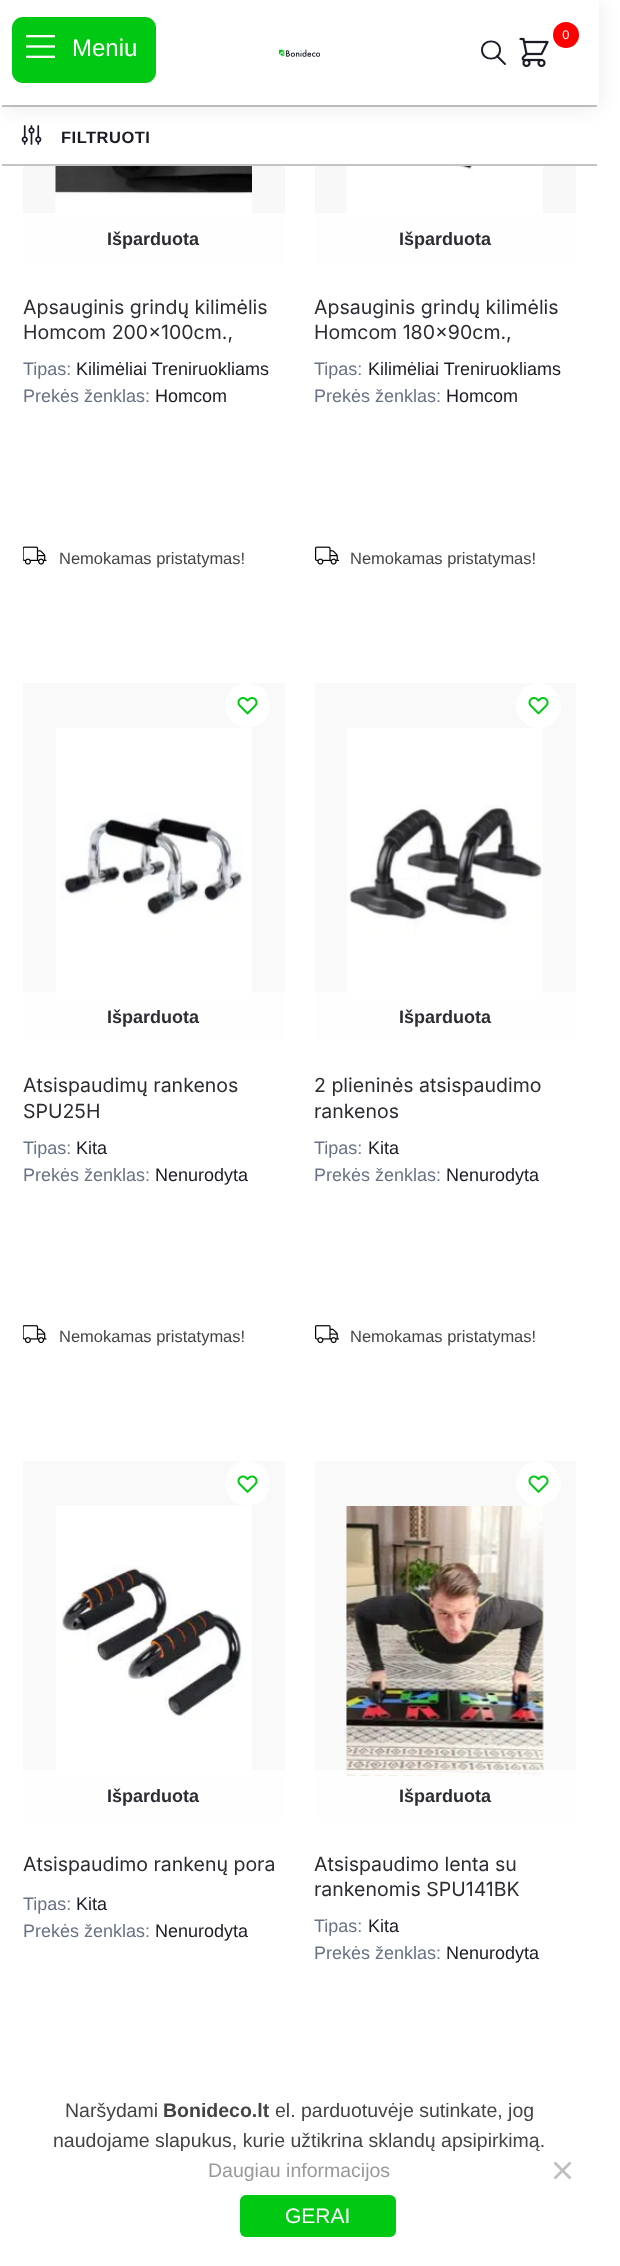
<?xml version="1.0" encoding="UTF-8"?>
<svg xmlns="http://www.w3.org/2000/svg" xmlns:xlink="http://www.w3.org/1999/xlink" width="620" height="2266">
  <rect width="100%" height="100%" fill="#ffffff" />
  <rect x="2" y="105" width="595" height="2" fill="#c3c4c7" />
  <image x="21" y="125" width="21" height="20" xlink:href="image4.png" />
  <rect y="2" width="599" height="105" fill="#000000" fill-opacity="0.08" filter="blur(11px)" />
  <rect width="599" height="105" fill="#fefffe" />
  <circle cx="566" cy="35" r="14" fill="#ff0000" stroke="#ffffff" stroke-width="2" />
  <image x="519" y="37" width="30" height="31" xlink:href="image1.png" />
  <rect x="12" y="17" width="144" height="66" rx="11" fill="#00c813" />
  <image x="26" y="35" width="29" height="23" xlink:href="image2.png" />
  <image x="279" y="49" width="41" height="8" xlink:href="image3.png" />
  <path d="M 505 64 l -8 -8 m 3 -6 c 0 11.5 -18 11.5 -18 0 c 0 -11.5 18 -11.5 18 0 z" fill="none" stroke="#1a1b25" stroke-width="1.9" stroke-linecap="round" stroke-linejoin="round" />
  <rect x="2" y="164" width="595" height="2" fill="#c3c4c7" />
  <rect x="23" y="166" width="262" height="98" fill="#f8f8f8" />
  <image x="55" y="166" width="197" height="53" xlink:href="image5.png" />
  <rect x="23" y="213" width="262" height="51" fill="#ffffff" fill-opacity="0.85" />
  <image x="23" y="546" width="24" height="19" xlink:href="image6.png" />
  <rect x="315" y="166" width="261" height="98" fill="#f8f8f8" />
  <image x="346" y="166" width="197" height="53" xlink:href="image7.png" />
  <rect x="315" y="213" width="261" height="51" fill="#ffffff" fill-opacity="0.85" />
  <image x="315" y="546" width="24" height="19" xlink:href="image8.png" />
  <rect x="23" y="683" width="262" height="360" fill="#f9f9f9" />
  <circle cx="247.5" cy="705.5" r="22.5" fill="#ffffff" />
  <image x="237" y="697" width="21" height="18" xlink:href="image9.png" />
  <image x="56" y="728" width="196" height="269" xlink:href="image10.png" />
  <rect x="23" y="992" width="262" height="51" fill="#ffffff" fill-opacity="0.85" />
  <image x="23" y="1325" width="24" height="19" xlink:href="image11.png" />
  <rect x="315" y="683" width="261" height="360" fill="#f9f9f9" />
  <circle cx="538.5" cy="705.5" r="22.5" fill="#ffffff" />
  <image x="528" y="697" width="21" height="18" xlink:href="image9.png" />
  <image x="347" y="728" width="196" height="269" xlink:href="image12.png" />
  <rect x="315" y="992" width="261" height="51" fill="#ffffff" fill-opacity="0.85" />
  <image x="315" y="1325" width="24" height="19" xlink:href="image13.png" />
  <rect x="23" y="1461" width="262" height="360" fill="#f9f9f9" />
  <circle cx="247.5" cy="1483.5" r="22.5" fill="#ffffff" />
  <image x="237" y="1475" width="21" height="18" xlink:href="image14.png" />
  <image x="56" y="1506" width="196" height="270" xlink:href="image15.png" />
  <rect x="23" y="1770" width="262" height="51" fill="#ffffff" fill-opacity="0.85" />
  <rect x="315" y="1461" width="261" height="360" fill="#f9f9f9" />
  <circle cx="538.5" cy="1483.5" r="22.5" fill="#ffffff" />
  <image x="528" y="1475" width="21" height="18" xlink:href="image14.png" />
  <image x="346" y="1506" width="198" height="270" xlink:href="image16.png" />
  <rect x="315" y="1770" width="261" height="51" fill="#ffffff" fill-opacity="0.85" />
  <path d="M 569.5 2161.5 l 2 2 l -16 16 l -2 -2 z" fill="#c0c0c0" />
  <path d="M 553.5 2163.5 l 2 -2 l 16 16 l -2 2 z" fill="#c0c0c0" />
  <rect x="240" y="2195" width="156" height="42" rx="6" fill="#00c813" />
  <text x="562" y="39" style="font-family: Inter; font-size: 12px; fill: #ffffff">0</text>
  <text x="72" y="56" style="font-family: Liberation Sans; font-size: 24px; fill: #ffffff">Meniu</text>
  <text x="61" y="143" style="font-family: Liberation Sans; font-size: 16.5px; font-weight: bold; letter-spacing: 0.5px; fill: #1a1b25">FILTRUOTI</text>
  <text x="107" y="245" style="font-family: Liberation Sans; font-size: 18px; font-weight: bold; fill: #2c2d33">Išparduota</text>
  <text x="23" y="314" style="font-family: Inter; font-size: 19.5px; fill: #2c2d33">Apsauginis grindų kilimėlis</text>
  <text x="23" y="339" style="font-family: Inter; font-size: 19.5px; fill: #2c2d33">Homcom 200x100cm.,</text>
  <text x="23" y="375" style="font-family: Liberation Sans; font-size: 18px; fill: #687385">Tipas:</text>
  <text x="76" y="375" style="font-family: Liberation Sans; font-size: 18px; fill: #1a1b25">Kilimėliai Treniruokliams</text>
  <text x="23" y="402" style="font-family: Liberation Sans; font-size: 18px; fill: #687385">Prekės ženklas:</text>
  <text x="155" y="402" style="font-family: Liberation Sans; font-size: 18px; fill: #1a1b25">Homcom</text>
  <text x="59" y="564" style="font-family: Liberation Sans; font-size: 16.5px; fill: #444444">Nemokamas pristatymas!</text>
  <text x="399" y="245" style="font-family: Liberation Sans; font-size: 18px; font-weight: bold; fill: #2c2d33">Išparduota</text>
  <text x="314" y="314" style="font-family: Inter; font-size: 19.5px; fill: #2c2d33">Apsauginis grindų kilimėlis</text>
  <text x="314" y="339" style="font-family: Inter; font-size: 19.5px; fill: #2c2d33">Homcom 180x90cm.,</text>
  <text x="314" y="375" style="font-family: Liberation Sans; font-size: 18px; fill: #687385">Tipas:</text>
  <text x="368" y="375" style="font-family: Liberation Sans; font-size: 18px; fill: #1a1b25">Kilimėliai Treniruokliams</text>
  <text x="314" y="402" style="font-family: Liberation Sans; font-size: 18px; fill: #687385">Prekės ženklas:</text>
  <text x="446" y="402" style="font-family: Liberation Sans; font-size: 18px; fill: #1a1b25">Homcom</text>
  <text x="350" y="564" style="font-family: Liberation Sans; font-size: 16.5px; fill: #444444">Nemokamas pristatymas!</text>
  <text x="107" y="1023" style="font-family: Liberation Sans; font-size: 18px; font-weight: bold; fill: #2c2d33">Išparduota</text>
  <text x="23" y="1092" style="font-family: Inter; font-size: 19.5px; fill: #2c2d33">Atsispaudimų rankenos</text>
  <text x="23" y="1118" style="font-family: Inter; font-size: 19.5px; fill: #2c2d33">SPU25H</text>
  <text x="23" y="1154" style="font-family: Liberation Sans; font-size: 18px; fill: #687385">Tipas:</text>
  <text x="76" y="1154" style="font-family: Liberation Sans; font-size: 18px; fill: #1a1b25">Kita</text>
  <text x="23" y="1181" style="font-family: Liberation Sans; font-size: 18px; fill: #687385">Prekės ženklas:</text>
  <text x="155" y="1181" style="font-family: Liberation Sans; font-size: 18px; fill: #1a1b25">Nenurodyta</text>
  <text x="59" y="1342" style="font-family: Liberation Sans; font-size: 16.5px; fill: #444444">Nemokamas pristatymas!</text>
  <text x="399" y="1023" style="font-family: Liberation Sans; font-size: 18px; font-weight: bold; fill: #2c2d33">Išparduota</text>
  <text x="314" y="1092" style="font-family: Inter; font-size: 19.5px; fill: #2c2d33">2 plieninės atsispaudimo</text>
  <text x="314" y="1118" style="font-family: Inter; font-size: 19.5px; fill: #2c2d33">rankenos</text>
  <text x="314" y="1154" style="font-family: Liberation Sans; font-size: 18px; fill: #687385">Tipas:</text>
  <text x="368" y="1154" style="font-family: Liberation Sans; font-size: 18px; fill: #1a1b25">Kita</text>
  <text x="314" y="1181" style="font-family: Liberation Sans; font-size: 18px; fill: #687385">Prekės ženklas:</text>
  <text x="446" y="1181" style="font-family: Liberation Sans; font-size: 18px; fill: #1a1b25">Nenurodyta</text>
  <text x="350" y="1342" style="font-family: Liberation Sans; font-size: 16.5px; fill: #444444">Nemokamas pristatymas!</text>
  <text x="107" y="1802" style="font-family: Liberation Sans; font-size: 18px; font-weight: bold; fill: #2c2d33">Išparduota</text>
  <text x="23" y="1871" style="font-family: Inter; font-size: 19.5px; fill: #2c2d33">Atsispaudimo rankenų pora</text>
  <text x="23" y="1910" style="font-family: Liberation Sans; font-size: 18px; fill: #687385">Tipas:</text>
  <text x="76" y="1910" style="font-family: Liberation Sans; font-size: 18px; fill: #1a1b25">Kita</text>
  <text x="23" y="1937" style="font-family: Liberation Sans; font-size: 18px; fill: #687385">Prekės ženklas:</text>
  <text x="155" y="1937" style="font-family: Liberation Sans; font-size: 18px; fill: #1a1b25">Nenurodyta</text>
  <text x="399" y="1802" style="font-family: Liberation Sans; font-size: 18px; font-weight: bold; fill: #2c2d33">Išparduota</text>
  <text x="314" y="1871" style="font-family: Inter; font-size: 19.5px; fill: #2c2d33">Atsispaudimo lenta su</text>
  <text x="314" y="1896" style="font-family: Inter; font-size: 19.5px; fill: #2c2d33">rankenomis SPU141BK</text>
  <text x="314" y="1932" style="font-family: Liberation Sans; font-size: 18px; fill: #687385">Tipas:</text>
  <text x="368" y="1932" style="font-family: Liberation Sans; font-size: 18px; fill: #1a1b25">Kita</text>
  <text x="314" y="1959" style="font-family: Liberation Sans; font-size: 18px; fill: #687385">Prekės ženklas:</text>
  <text x="446" y="1959" style="font-family: Liberation Sans; font-size: 18px; fill: #1a1b25">Nenurodyta</text>
  <text x="65" y="2117" style="font-family: Liberation Sans; font-size: 19.5px; fill: #444444">Naršydami</text>
  <text x="163" y="2117" style="font-family: Liberation Sans; font-size: 19.5px; font-weight: bold; fill: #444444">Bonideco.lt</text>
  <text x="275" y="2117" style="font-family: Liberation Sans; font-size: 19.5px; fill: #444444">el. parduotuvėje sutinkate, jog</text>
  <text x="53" y="2147" style="font-family: Liberation Sans; font-size: 19.5px; fill: #444444">naudojame slapukus, kurie užtikrina sklandų apsipirkimą.</text>
  <text x="208" y="2177" style="font-family: Liberation Sans; font-size: 19.5px; fill: #999999">Daugiau informacijos</text>
  <text x="285" y="2223" style="font-family: Liberation Sans; font-size: 21px; fill: #ffffff">GERAI</text>
</svg>
